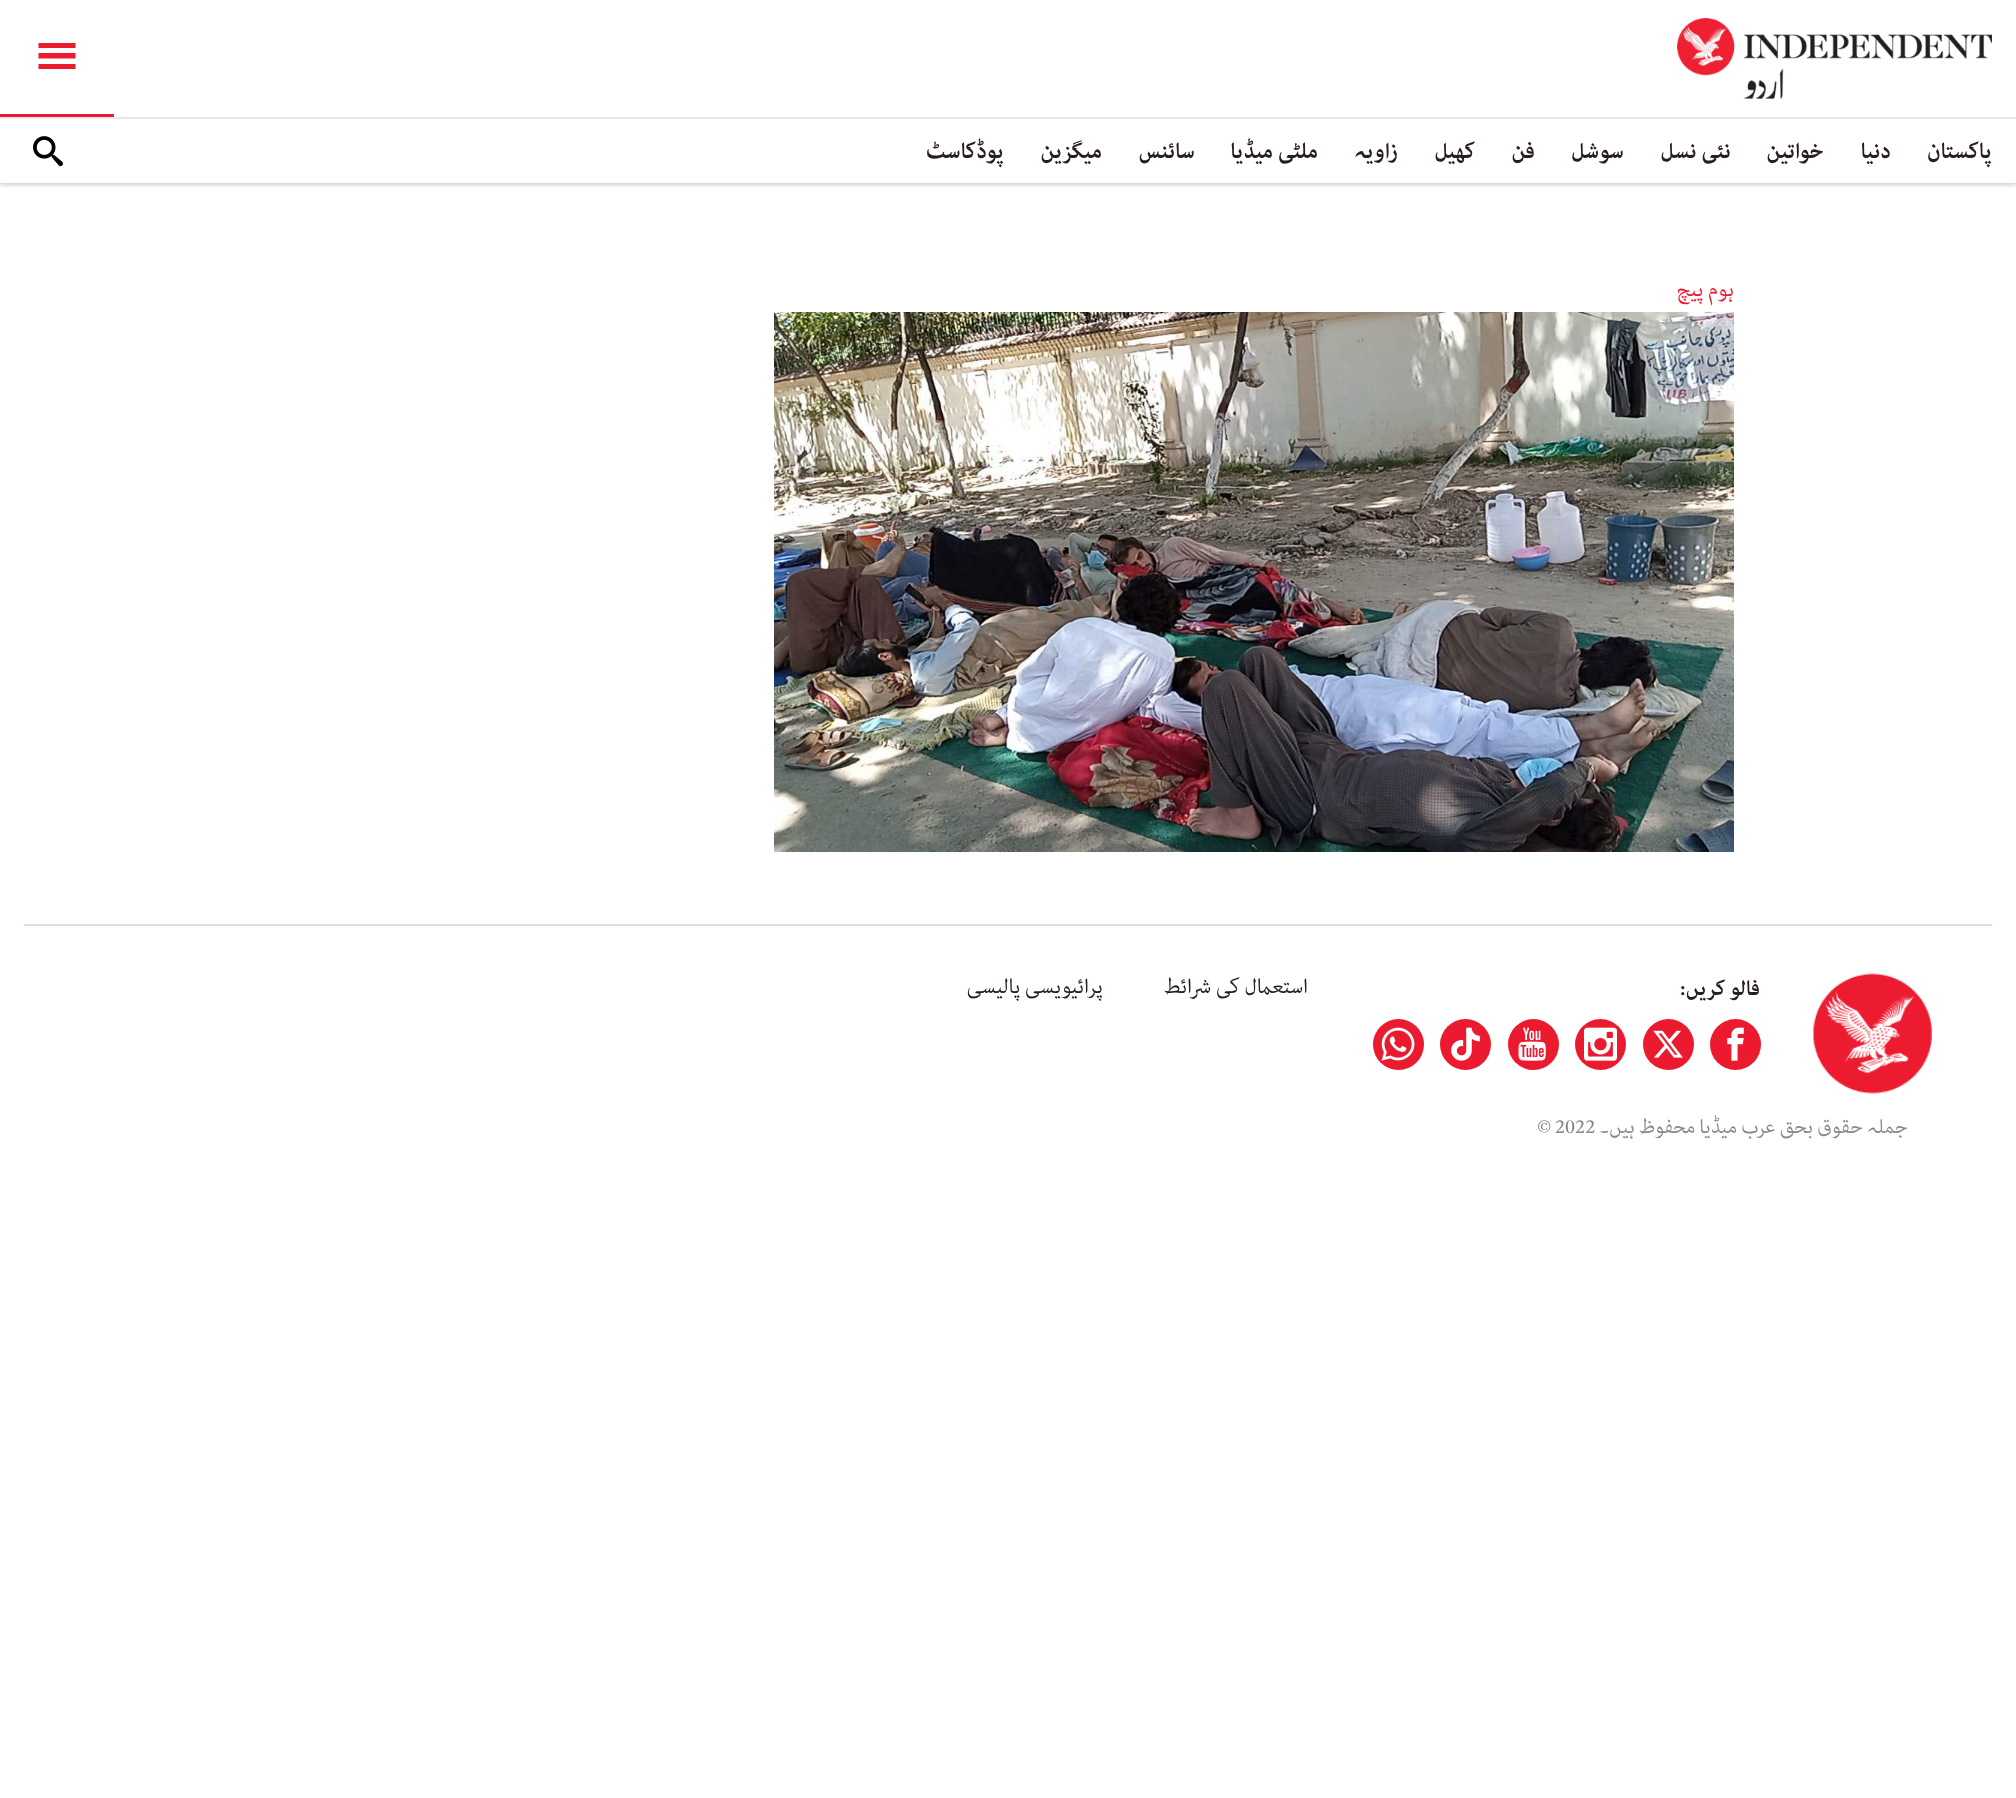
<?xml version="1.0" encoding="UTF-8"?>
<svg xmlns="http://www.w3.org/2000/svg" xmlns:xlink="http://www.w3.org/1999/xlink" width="2016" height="1798">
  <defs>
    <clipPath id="clip1"><rect x="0" y="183" width="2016" height="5" /></clipPath>
  </defs>
  <rect width="100%" height="100%" fill="#ffffff" />
  <g clip-path="url(#clip1)">
    <rect y="2" width="2016" height="183" fill="#000000" fill-opacity="0.2" filter="blur(2px)" />
  </g>
  <rect y="117" width="2016" height="2" fill="#e5e9ea" />
  <image x="1677" y="18" width="315" height="81" xlink:href="image1.png" />
  <path d="M 38.5 43 h 37 v 5 h -37 z m 0 10 h 37 v 5.5 h -37 z m 0 11 h 37 v 5 h -37 z" fill="#ec1a2e" />
  <rect y="114" width="114" height="3" fill="#ec1a2e" />
  <image x="33" y="136" width="30" height="31" xlink:href="image2.png" />
  <image x="774" y="312" width="960" height="540" xlink:href="image3.png" />
  <rect x="24" y="924" width="1968" height="2" fill="#dadfe1" />
  <image x="1813" y="973" width="119" height="121" xlink:href="image4.png" />
  <circle cx="1735.5" cy="1044.5" r="25.5" fill="#ec1a2e" />
  <image x="1727" y="1027" width="17" height="34" xlink:href="image5.png" />
  <circle cx="1668.5" cy="1044.5" r="25.5" fill="#ec1a2e" />
  <image x="1653" y="1030" width="30" height="28" xlink:href="image6.png" />
  <circle cx="1600.5" cy="1044.5" r="25.5" fill="#ec1a2e" />
  <image x="1584" y="1027" width="33" height="34" xlink:href="image7.png" />
  <circle cx="1533.5" cy="1044.5" r="25.5" fill="#ec1a2e" />
  <image x="1518" y="1027" width="28" height="34" xlink:href="image8.png" />
  <circle cx="1465.5" cy="1044.5" r="25.5" fill="#ec1a2e" />
  <image x="1451" y="1027" width="29" height="34" xlink:href="image9.png" />
  <circle cx="1398.5" cy="1044.5" r="25.5" fill="#ec1a2e" />
  <image x="1381" y="1027" width="34" height="34" xlink:href="image10.png" />
  <text x="1992" y="158" style="font-family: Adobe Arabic; font-size: 31.5px; font-weight: bold; direction: rtl; fill: #281e1e">پاکستان</text>
  <text x="1891" y="158" style="font-family: Adobe Arabic; font-size: 31.5px; font-weight: bold; direction: rtl; fill: #281e1e">دنیا</text>
  <text x="1824" y="158" style="font-family: Adobe Arabic; font-size: 31.5px; font-weight: bold; direction: rtl; fill: #281e1e">خواتین</text>
  <text x="1731" y="158" word-spacing="-1.5" style="font-family: Adobe Arabic; font-size: 31.5px; font-weight: bold; direction: rtl; fill: #281e1e">نئی نسل</text>
  <text x="1624" y="158" style="font-family: Adobe Arabic; font-size: 31.5px; font-weight: bold; direction: rtl; fill: #281e1e">سوشل</text>
  <text x="1535" y="158" style="font-family: Adobe Arabic; font-size: 31.5px; font-weight: bold; direction: rtl; fill: #281e1e">فن</text>
  <text x="1475" y="158" style="font-family: Adobe Arabic; font-size: 31.5px; font-weight: bold; direction: rtl; fill: #281e1e">کھیل</text>
  <text x="1398" y="158" style="font-family: Adobe Arabic; font-size: 31.5px; font-weight: bold; direction: rtl; fill: #281e1e">زاویہ</text>
  <text x="1318" y="158" word-spacing="-1.5" style="font-family: Adobe Arabic; font-size: 31.5px; font-weight: bold; direction: rtl; fill: #281e1e">ملٹی میڈیا</text>
  <text x="1195" y="158" style="font-family: Adobe Arabic; font-size: 31.5px; font-weight: bold; direction: rtl; fill: #281e1e">سائنس</text>
  <text x="1102" y="158" style="font-family: Adobe Arabic; font-size: 31.5px; font-weight: bold; direction: rtl; fill: #281e1e">میگزین</text>
  <text x="1004" y="158" style="font-family: Adobe Arabic; font-size: 31.5px; font-weight: bold; direction: rtl; fill: #281e1e">پوڈکاسٹ</text>
  <text x="1734" y="296" word-spacing="-1.5" style="font-family: Adobe Arabic; font-size: 30px; direction: rtl; fill: #ec1a2e">ہوم پیچ</text>
  <text x="1760" y="995" word-spacing="-1.5" style="font-family: Adobe Arabic; font-size: 30px; font-weight: bold; direction: rtl; fill: #281e1e">فالو کریں:</text>
  <text x="1308" y="993" word-spacing="-1.5" style="font-family: Adobe Arabic; font-size: 30px; direction: rtl; fill: #281e1e">استعمال کی شرائط</text>
  <text x="1103" y="993" word-spacing="-1.5" style="font-family: Adobe Arabic; font-size: 30px; direction: rtl; fill: #281e1e">پرائیویسی پالیسی</text>
  <text x="1908" y="1133" word-spacing="-1.5" style="font-family: Adobe Arabic; font-size: 28.5px; direction: rtl; fill: #888888">جملہ حقوق بحق عرب میڈیا محفوظ ہیں۔</text>
  <text x="1555" y="1133" style="font-family: Adobe Arabic; font-size: 28.5px; fill: #888888">2022</text>
  <text x="1537" y="1133" style="font-family: Adobe Arabic; font-size: 28.5px; fill: #888888">©</text>
</svg>
